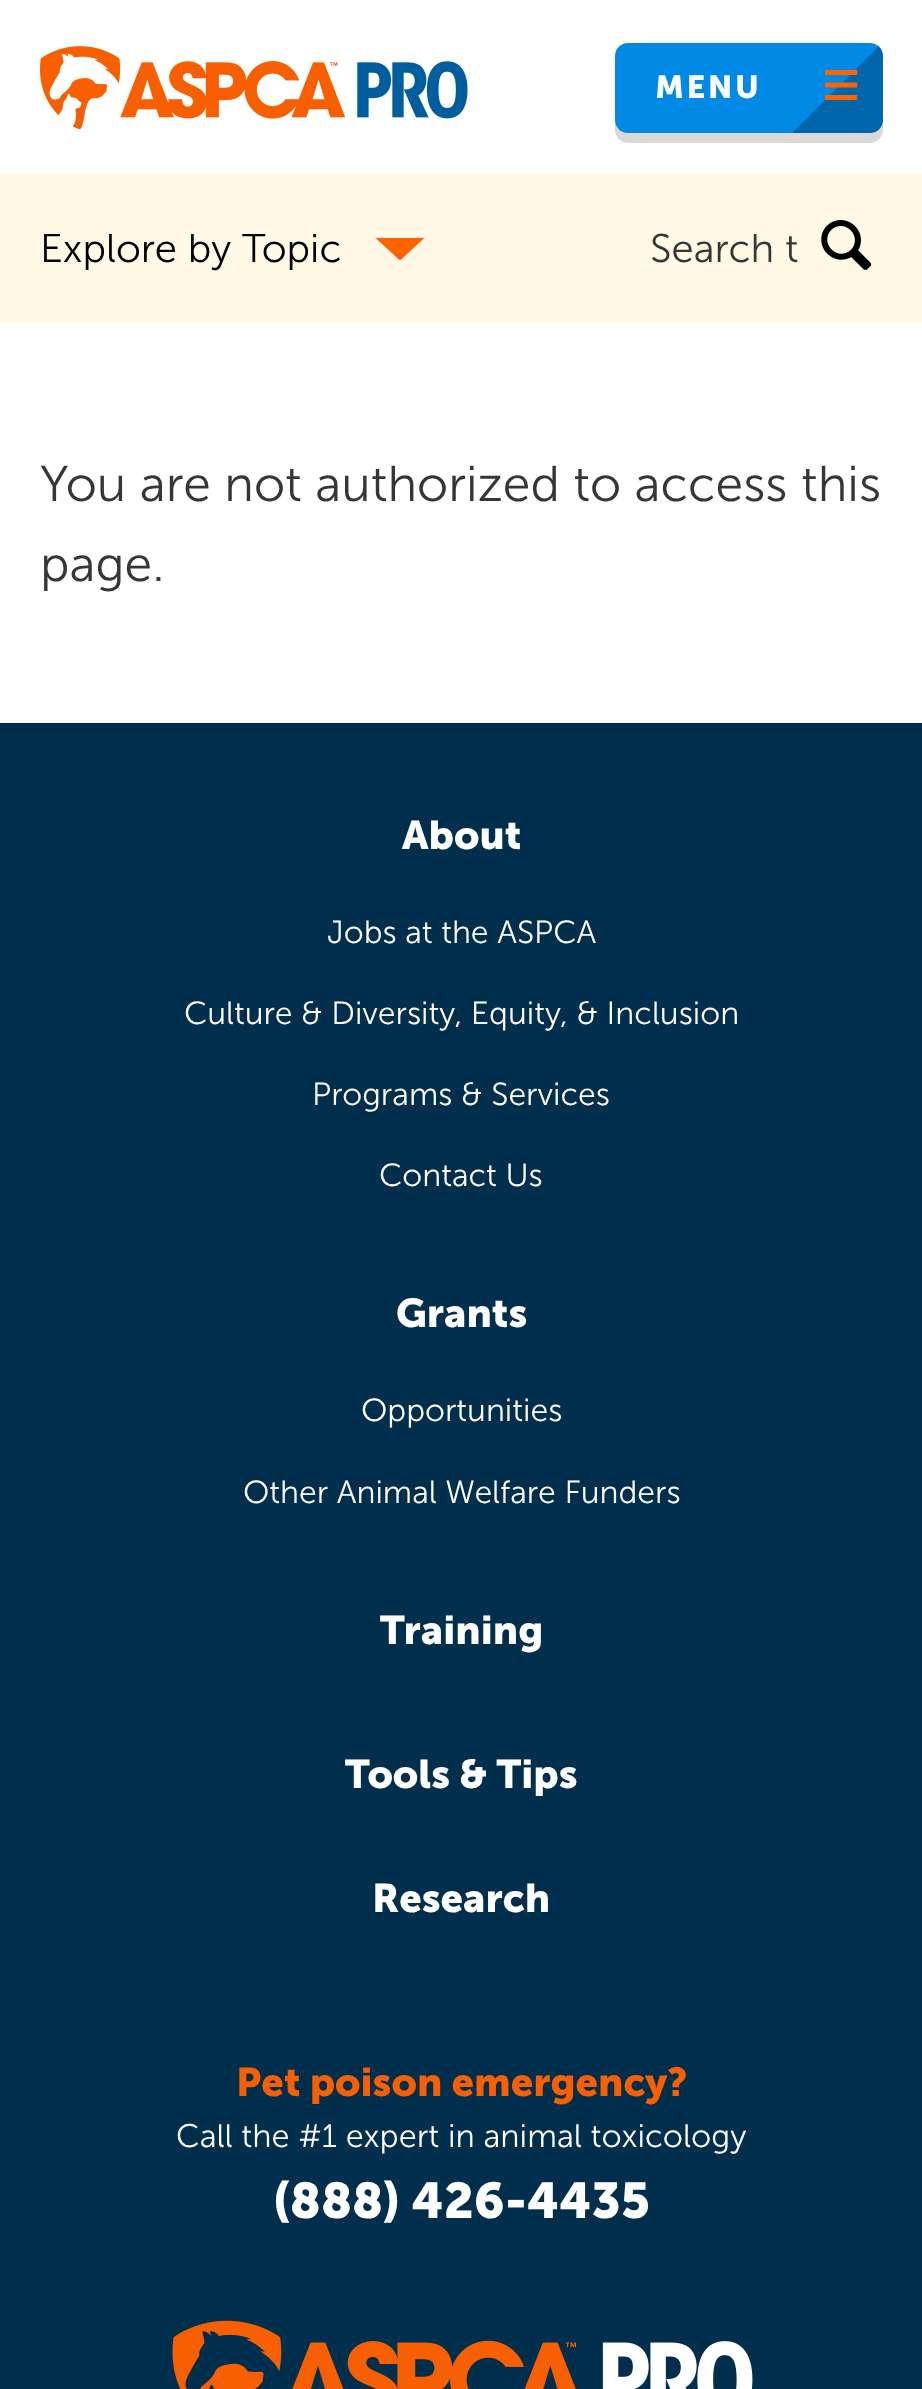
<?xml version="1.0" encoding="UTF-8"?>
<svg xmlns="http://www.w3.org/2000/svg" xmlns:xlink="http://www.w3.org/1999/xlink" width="922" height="2389">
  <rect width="100%" height="100%" fill="#002e4d" />
  <rect width="922" height="173" fill="#ffffff" />
  <image x="40" y="46" width="428" height="84" xlink:href="image1.png" />
  <path d="M 615 120 v 10 c 0 7 6 13 13 13 h 242 c 7 0 13 -6 13 -13 v -64 l -1 -4 v 58 c 0 7 -5 12 -12 12 h -242 c -7 0 -13 -5 -13 -12 z" fill="#d9d9d9" />
  <rect x="615" y="43" width="268" height="90" rx="13" fill="#0089e5" />
  <path d="M 792 133 h 78 c 7 0 13 -6 13 -13 v -64 c 0 -4 -2 -7 -4 -10 z" fill="#000000" fill-opacity="0.25" />
  <image x="825" y="70" width="33" height="30" xlink:href="image2.png" />
  <rect y="173" width="922" height="150" fill="#fff9e5" />
  <image x="375" y="238" width="50" height="23" xlink:href="image3.png" />
  <image x="821" y="220" width="51" height="50" xlink:href="image4.png" />
  <rect y="323" width="922" height="400" fill="#ffffff" />
  <image x="172" y="2320" width="581" height="69" xlink:href="image5.png" />
  <text x="655" y="98" style="font-family: 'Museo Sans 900'; font-size: 32px; font-weight: bold; letter-spacing: 2.5px; fill: #ffffff">MENU</text>
  <text x="40" y="262" style="font-family: 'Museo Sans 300'; font-size: 40px; font-weight: 300; fill: #000000">Explore by Topic</text>
  <text x="650" y="262" style="font-family: 'Museo Sans 300'; font-size: 40px; font-weight: 300; fill: #363636">Search t</text>
  <text x="40" y="501" style="font-family: 'Museo Sans 300'; font-size: 50px; font-weight: 300; fill: #363636">You are not authorized to access this</text>
  <text x="40" y="581" style="font-family: 'Museo Sans 300'; font-size: 50px; font-weight: 300; fill: #363636">page.</text>
  <text x="402" y="849" style="font-family: 'Museo Sans 900'; font-size: 40px; font-weight: bold; fill: #ffffff">About</text>
  <text x="327" y="943" style="font-family: 'Museo Sans 300'; font-size: 32px; font-weight: 300; fill: #ffffff">Jobs at the ASPCA</text>
  <text x="184" y="1024" style="font-family: 'Museo Sans 300'; font-size: 32px; font-weight: 300; fill: #ffffff">Culture &amp; Diversity, Equity, &amp; Inclusion</text>
  <text x="312" y="1105" style="font-family: 'Museo Sans 300'; font-size: 32px; font-weight: 300; fill: #ffffff">Programs &amp; Services</text>
  <text x="379" y="1186" style="font-family: 'Museo Sans 300'; font-size: 32px; font-weight: 300; fill: #ffffff">Contact Us</text>
  <text x="396" y="1327" style="font-family: 'Museo Sans 900'; font-size: 40px; font-weight: bold; fill: #ffffff">Grants</text>
  <text x="361" y="1421" style="font-family: 'Museo Sans 300'; font-size: 32px; font-weight: 300; fill: #ffffff">Opportunities</text>
  <text x="243" y="1503" style="font-family: 'Museo Sans 300'; font-size: 32px; font-weight: 300; fill: #ffffff">Other Animal Welfare Funders</text>
  <text x="380" y="1644" style="font-family: 'Museo Sans 900'; font-size: 40px; font-weight: bold; fill: #ffffff">Training</text>
  <text x="345" y="1788" style="font-family: 'Museo Sans 900'; font-size: 40px; font-weight: bold; fill: #ffffff">Tools &amp; Tips</text>
  <text x="372" y="1912" style="font-family: 'Museo Sans 900'; font-size: 40px; font-weight: bold; fill: #ffffff">Research</text>
  <text x="236" y="2096" style="font-family: 'Museo Sans 900'; font-size: 40px; font-weight: bold; fill: #f75f00">Pet poison emergency?</text>
  <text x="176" y="2147" style="font-family: 'Museo Sans 300'; font-size: 32.5px; font-weight: 300; fill: #ffffff">Call the #1 expert in animal toxicology</text>
  <text x="273" y="2218" style="font-family: 'Museo Sans 900'; font-size: 50px; font-weight: bold; fill: #ffffff">(888) 426-4435</text>
</svg>
